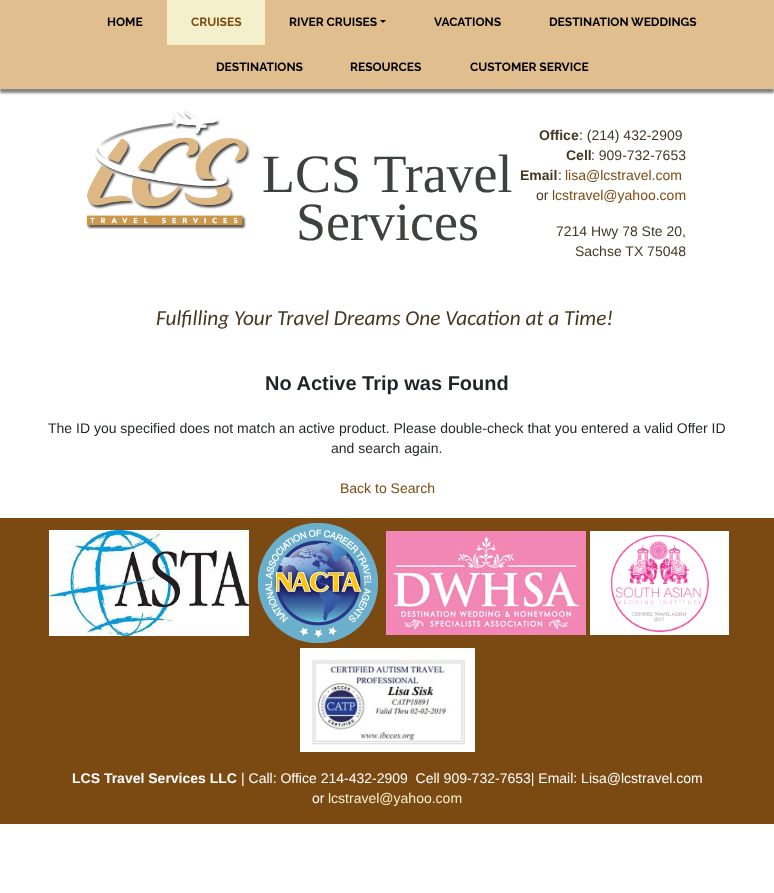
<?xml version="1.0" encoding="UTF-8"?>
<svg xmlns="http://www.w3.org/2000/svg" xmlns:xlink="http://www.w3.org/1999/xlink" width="774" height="893">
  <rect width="100%" height="100%" fill="#ffffff" />
  <rect y="4" width="774" height="89" fill="#000000" fill-opacity="0.48" filter="blur(1px)" />
  <rect width="774" height="89" fill="#e0be8e" />
  <rect x="167" width="98" height="45" fill="#f4f0cb" />
  <path d="M 380 20 h 6 l -3 3 z" fill="#000000" />
  <image x="86" y="110" width="164" height="119" xlink:href="image1.png" />
  <rect y="518" width="774" height="306" fill="#7b4a12" />
  <image x="49" y="530" width="200" height="106" xlink:href="image2.png" />
  <image x="258" y="523" width="120" height="120" xlink:href="image3.png" />
  <image x="386" y="531" width="200" height="104" xlink:href="image4.png" />
  <image x="590" y="531" width="139" height="104" xlink:href="image5.png" />
  <image x="300" y="648" width="175" height="104" xlink:href="image6.png" />
  <text x="107" y="26" style="font-family: Raleway; font-size: 12px; font-weight: bold; fill: #000000">HOME</text>
  <text x="191" y="26" style="font-family: Raleway; font-size: 12px; font-weight: bold; fill: #7b4a12">CRUISES</text>
  <text x="289" y="26" style="font-family: Raleway; font-size: 12px; font-weight: bold; fill: #000000">RIVER CRUISES</text>
  <text x="434" y="26" style="font-family: Raleway; font-size: 12px; font-weight: bold; fill: #000000">VACATIONS</text>
  <text x="549" y="26" style="font-family: Raleway; font-size: 12px; font-weight: bold; fill: #000000">DESTINATION WEDDINGS</text>
  <text x="216" y="71" style="font-family: Raleway; font-size: 12px; font-weight: bold; fill: #000000">DESTINATIONS</text>
  <text x="350" y="71" style="font-family: Raleway; font-size: 12px; font-weight: bold; fill: #000000">RESOURCES</text>
  <text x="470" y="71" style="font-family: Raleway; font-size: 12px; font-weight: bold; fill: #000000">CUSTOMER SERVICE</text>
  <text x="262" y="192" style="font-family: Liberation Serif; font-size: 54px; fill: #3d423e">LCS Travel</text>
  <text x="296" y="240" style="font-family: Liberation Serif; font-size: 54px; fill: #3d423e">Services</text>
  <text x="539" y="140" style="font-family: Liberation Sans; font-size: 14px; font-weight: bold; fill: #453823">Office</text>
  <text x="579" y="140" style="font-family: Liberation Sans; font-size: 14px; fill: #453823">: (214) 432-2909</text>
  <text x="566" y="160" style="font-family: Liberation Sans; font-size: 14px; font-weight: bold; fill: #453823">Cell</text>
  <text x="591" y="160" style="font-family: Liberation Sans; font-size: 14px; fill: #453823">: 909-732-7653</text>
  <text x="520" y="180" style="font-family: Liberation Sans; font-size: 14px; font-weight: bold; fill: #453823">Email</text>
  <text x="558" y="180" style="font-family: Liberation Sans; font-size: 14px; fill: #453823">:</text>
  <text x="565" y="180" style="font-family: Liberation Sans; font-size: 14px; fill: #7b4a12">lisa@lcstravel.com</text>
  <text x="536" y="200" style="font-family: Liberation Sans; font-size: 14px; fill: #453823">or</text>
  <text x="552" y="200" style="font-family: Liberation Sans; font-size: 14px; fill: #7b4a12">lcstravel@yahoo.com</text>
  <text x="556" y="236" style="font-family: Liberation Sans; font-size: 14px; fill: #453823">7214 Hwy 78 Ste 20,</text>
  <text x="575" y="256" style="font-family: Liberation Sans; font-size: 14px; fill: #453823">Sachse TX 75048</text>
  <text x="156" y="325" style="font-family: Carlito; font-size: 21.3px; font-style: italic; fill: #453823">Fulfilling Your Travel Dreams One Vacation at a Time!</text>
  <text x="265" y="390" style="font-family: Liberation Sans; font-size: 20px; font-weight: bold; fill: #1f2426">No Active Trip was Found</text>
  <text x="48" y="433" style="font-family: Liberation Sans; font-size: 14px; fill: #1f2426">The ID you specified does not match an active product. Please double-check that you entered a valid Offer ID</text>
  <text x="331" y="453" style="font-family: Liberation Sans; font-size: 14px; fill: #1f2426">and search again.</text>
  <text x="340" y="493" style="font-family: Liberation Sans; font-size: 14px; fill: #7b4a12">Back to Search</text>
  <text x="72" y="783" style="font-family: Liberation Sans; font-size: 14px; font-weight: bold; fill: #ffffff">LCS Travel Services LLC</text>
  <text x="241" y="783" style="font-family: Liberation Sans; font-size: 14px; fill: #ffffff" xml:space="preserve">| Call: Office 214-432-2909  Cell 909-732-7653| Email: Lisa@lcstravel.com</text>
  <text x="312" y="803" style="font-family: Liberation Sans; font-size: 14px; fill: #ffffff">or</text>
  <text x="328" y="803" style="font-family: Liberation Sans; font-size: 14px; fill: #f4f0cb">lcstravel@yahoo.com</text>
</svg>
